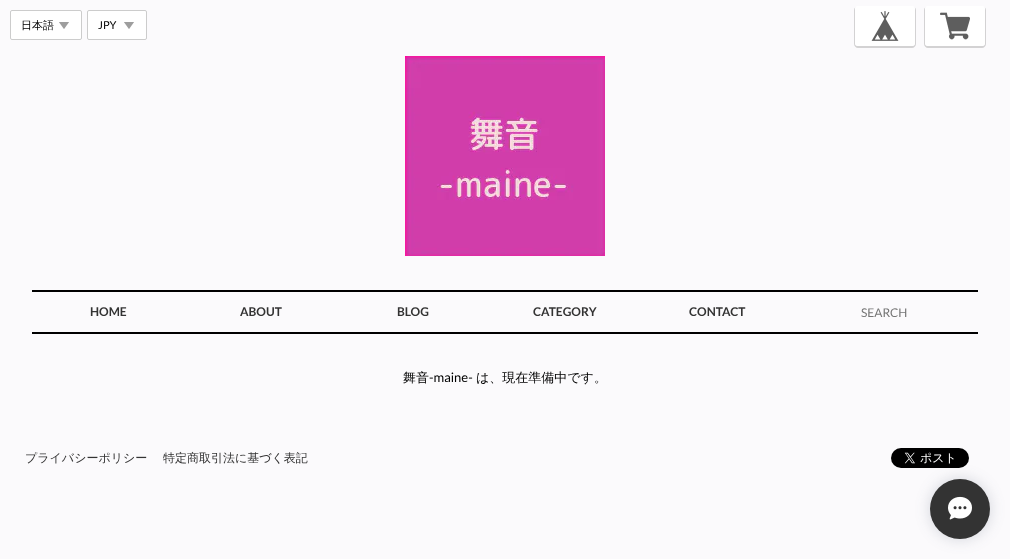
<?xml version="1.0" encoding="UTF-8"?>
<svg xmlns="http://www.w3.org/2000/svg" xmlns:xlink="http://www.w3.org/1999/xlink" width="1010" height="559">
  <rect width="100%" height="100%" fill="#fbfafc" />
  <rect x="10.5" y="10.5" width="71" height="29" rx="1.5" fill="#ffffff" stroke="#cccccc" />
  <image x="59" y="22" width="10" height="7" xlink:href="image1.png" />
  <rect x="87.5" y="10.5" width="59" height="29" rx="1.5" fill="#ffffff" stroke="#cccccc" />
  <image x="124" y="22" width="10" height="7" xlink:href="image1.png" />
  <path d="M 858 6 c -2 0 -4 2 -4 4 v 34 c 0 2 2 4 4 4 h 54 c 2 0 4 -2 4 -4 v -34 c 0 -2 -2 -4 -4 -4 c 2 0 3 1 3 3 v 34 c 0 2 -1 3 -3 3 h -54 c -2 0 -3 -1 -3 -3 v -34 c 0 -2 1 -3 3 -3 z" fill="#d3d2d3" />
  <rect x="855" y="6" width="60" height="40" rx="3" fill="#ffffff" />
  <image x="871" y="11" width="28" height="30" xlink:href="image2.png" />
  <path d="M 928 6 c -2 0 -4 2 -4 4 v 34 c 0 2 2 4 4 4 h 54 c 2 0 4 -2 4 -4 v -34 c 0 -2 -2 -4 -4 -4 c 2 0 3 1 3 3 v 34 c 0 2 -1 3 -3 3 h -54 c -2 0 -3 -1 -3 -3 v -34 c 0 -2 1 -3 3 -3 z" fill="#d3d2d3" />
  <rect x="925" y="6" width="60" height="40" rx="3" fill="#ffffff" />
  <image x="940" y="12" width="30" height="28" xlink:href="image3.png" />
  <image x="405" y="56" width="200" height="200" xlink:href="image4.png" />
  <rect x="32" y="290" width="946" height="2" fill="#000000" />
  <rect x="32" y="332" width="946" height="2" fill="#000000" />
  <image x="891" y="448" width="78" height="20" xlink:href="image5.png" />
  <rect x="930" y="479" width="60" height="60" rx="30" fill="#334258" fill-opacity="0.2" filter="blur(7.5px)" />
  <circle cx="960" cy="509" r="30" fill="#333333" />
  <image x="948" y="496" width="24" height="24" xlink:href="image6.png" />
  <text x="21" y="29" style="font-family: WenQuanYi Zen Hei; font-size: 11px; font-weight: 500; fill: #000000">日本語</text>
  <text x="98" y="29" style="font-family: Lato; font-size: 11px; fill: #000000">JPY</text>
  <text x="90" y="316" style="font-family: Lato; font-size: 12px; font-weight: bold; fill: #333333">HOME</text>
  <text x="240" y="316" style="font-family: Lato; font-size: 12px; font-weight: bold; fill: #333333">ABOUT</text>
  <text x="397" y="316" style="font-family: Lato; font-size: 12px; font-weight: bold; fill: #333333">BLOG</text>
  <text x="533" y="316" style="font-family: Lato; font-size: 12px; font-weight: bold; fill: #333333">CATEGORY</text>
  <text x="689" y="316" style="font-family: Lato; font-size: 12px; font-weight: bold; fill: #333333">CONTACT</text>
  <text x="861" y="317" style="font-family: Lato; font-size: 12px; fill: #757575">SEARCH</text>
  <text x="403" y="382" style="font-family: WenQuanYi Zen Hei; font-size: 13px; font-weight: 500; fill: #000000">舞音</text>
  <text x="429" y="382" style="font-family: Lato; font-size: 13px; fill: #000000">-maine-</text>
  <text x="476" y="382" style="font-family: WenQuanYi Zen Hei; font-size: 13px; font-weight: 500; fill: #000000">は、現在準備中です。</text>
  <text x="25" y="462" style="font-family: WenQuanYi Zen Hei; font-size: 12px; font-weight: 500; fill: #333333">プライバシーポリシー</text>
  <text x="163" y="462" style="font-family: WenQuanYi Zen Hei; font-size: 12px; font-weight: 500; fill: #333333">特定商取引法に基づく表記</text>
</svg>
